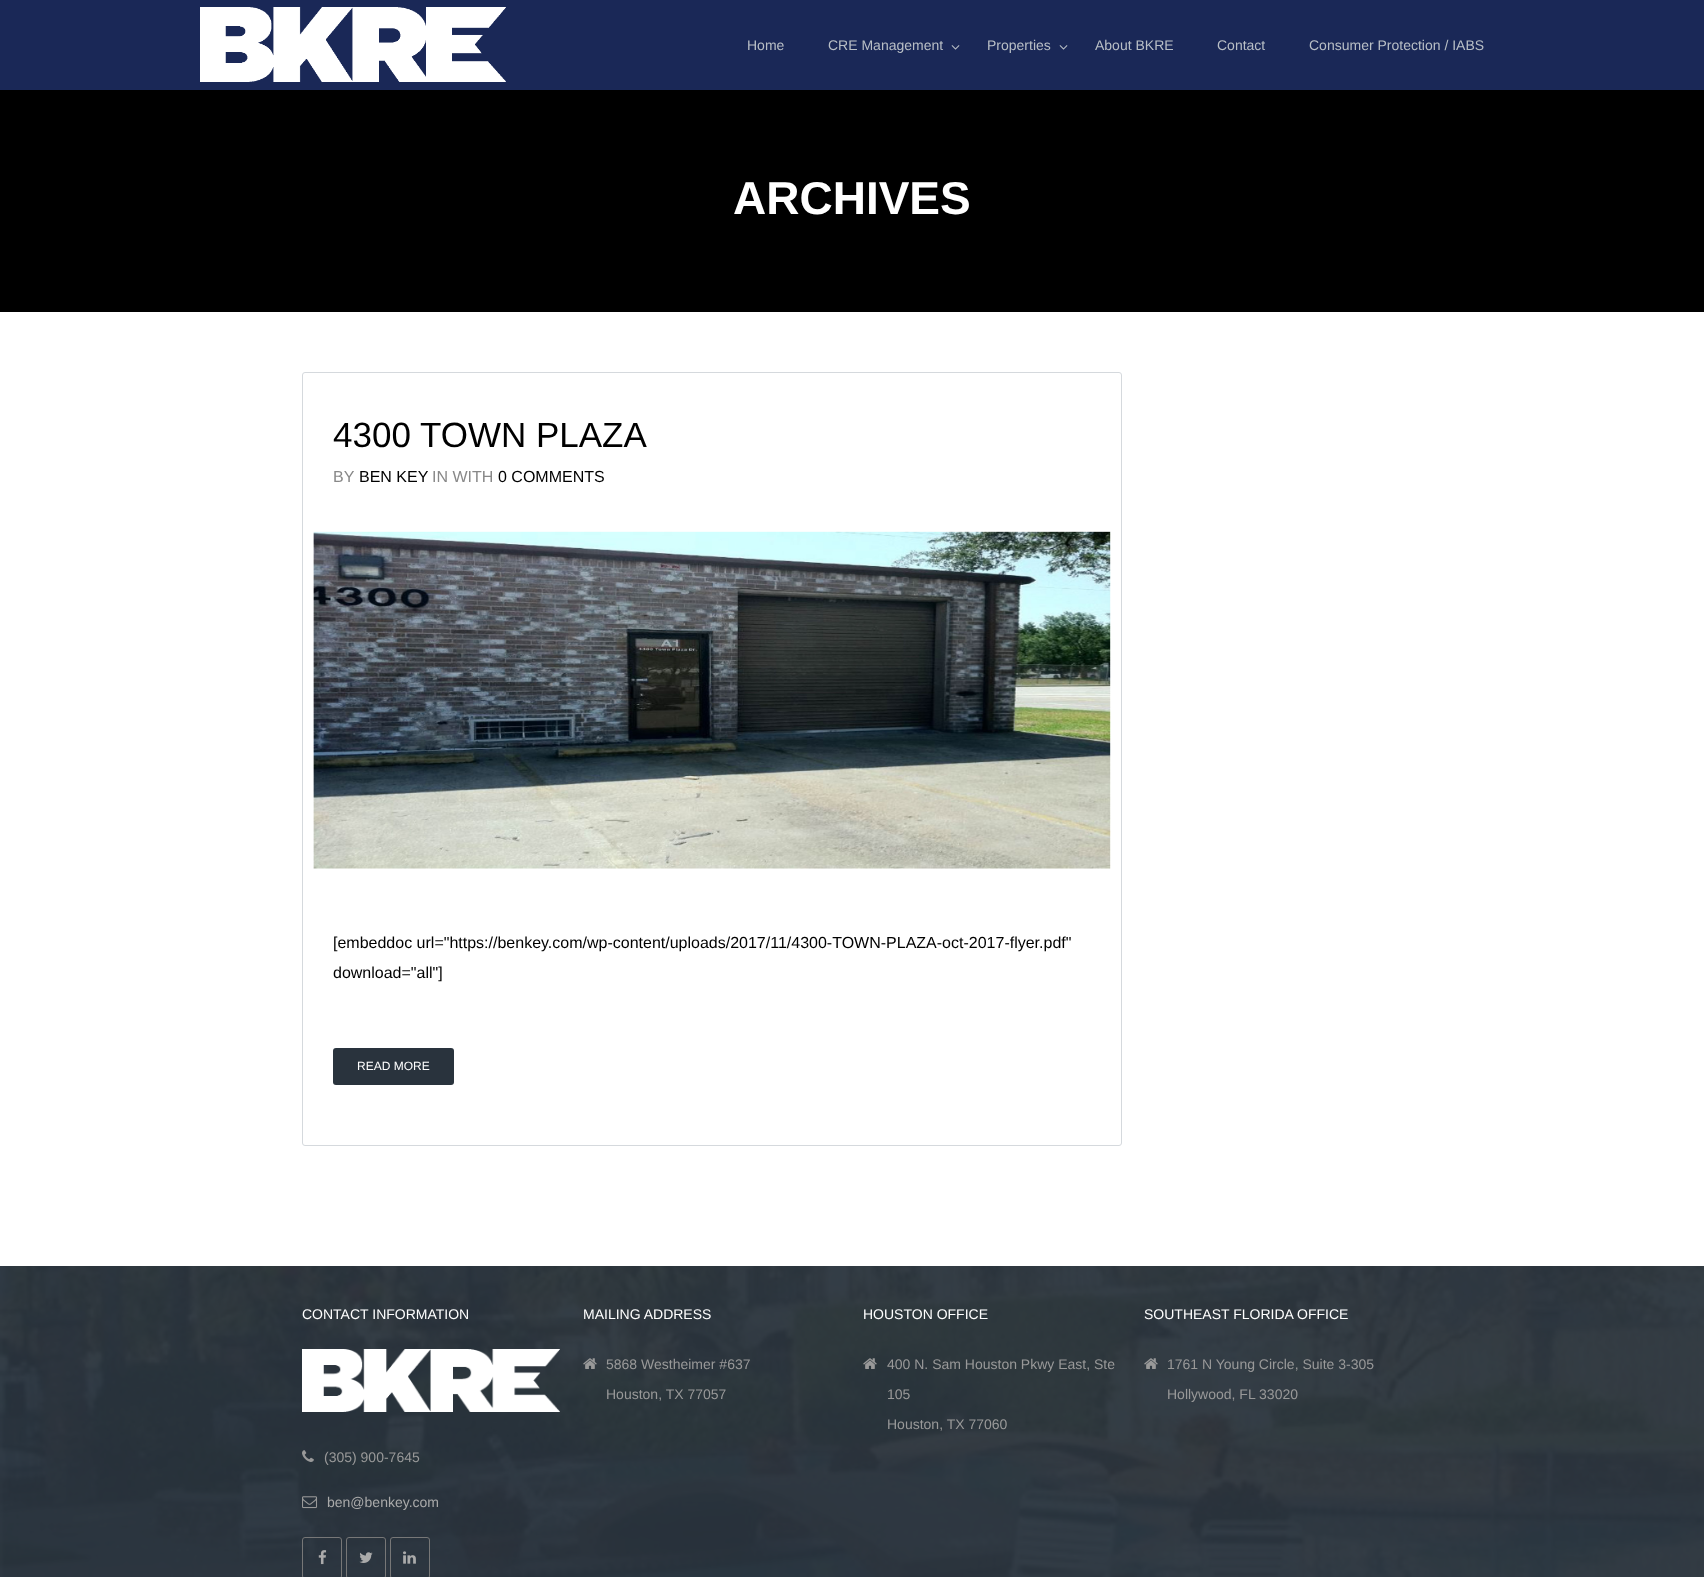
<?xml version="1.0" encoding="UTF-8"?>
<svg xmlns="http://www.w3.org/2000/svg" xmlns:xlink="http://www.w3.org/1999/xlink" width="1704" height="1577">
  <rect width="100%" height="100%" fill="#ffffff" />
  <rect width="1704" height="90" fill="#1a2857" />
  <image x="200" y="7" width="306" height="75" xlink:href="image1.png" />
  <image x="951" y="45" width="9" height="5" xlink:href="image2.png" />
  <image x="1059" y="45" width="9" height="5" xlink:href="image2.png" />
  <rect y="90" width="1704" height="222" fill="#000000" />
  <rect x="302.5" y="372.5" width="819" height="773" rx="2.5" fill="none" stroke="#d5d9dd" />
  <image x="313" y="531" width="798" height="338" xlink:href="image3.png" />
  <rect x="333" y="1048" width="121" height="37" rx="3" fill="#29333d" />
  <image x="0" y="1266" width="1704" height="311" xlink:href="image4.png" />
  <image x="302" y="1349" width="258" height="63" xlink:href="image5.png" />
  <image x="302" y="1450" width="12" height="12" xlink:href="image6.png" />
  <image x="302" y="1496" width="16" height="13" xlink:href="image7.png" />
  <rect x="302.5" y="1537.5" width="39" height="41" rx="2.5" fill="none" stroke="#777777" />
  <image x="318" y="1550" width="9" height="15" xlink:href="image8.png" />
  <rect x="346.5" y="1537.5" width="39" height="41" rx="2.5" fill="none" stroke="#777777" />
  <image x="359" y="1552" width="14" height="11" xlink:href="image9.png" />
  <rect x="390.5" y="1537.5" width="39" height="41" rx="2.5" fill="none" stroke="#777777" />
  <image x="403" y="1551" width="13" height="13" xlink:href="image10.png" />
  <image x="583" y="1358" width="14" height="11" xlink:href="image11.png" />
  <image x="863" y="1358" width="14" height="11" xlink:href="image12.png" />
  <image x="1144" y="1358" width="14" height="11" xlink:href="image13.png" />
  <text x="747" y="50" style="font-family: Liberation Sans; font-size: 14px; fill: #b9bfc6">Home</text>
  <text x="828" y="50" style="font-family: Liberation Sans; font-size: 14px; fill: #b9bfc6">CRE Management</text>
  <text x="987" y="50" style="font-family: Liberation Sans; font-size: 14px; fill: #b9bfc6">Properties</text>
  <text x="1095" y="50" style="font-family: Liberation Sans; font-size: 14px; fill: #b9bfc6">About BKRE</text>
  <text x="1217" y="50" style="font-family: Liberation Sans; font-size: 14px; fill: #b9bfc6">Contact</text>
  <text x="1309" y="50" style="font-family: Liberation Sans; font-size: 14px; fill: #b9bfc6">Consumer Protection / IABS</text>
  <text x="733" y="214" style="font-family: Liberation Sans; font-size: 46px; font-weight: bold; fill: #ffffff">ARCHIVES</text>
  <text x="333" y="447" style="font-family: Liberation Sans; font-size: 35px; fill: #000000">4300 TOWN PLAZA</text>
  <text x="333" y="482" style="font-family: Liberation Sans; font-size: 16px; fill: #888888">BY</text>
  <text x="359" y="482" style="font-family: Liberation Sans; font-size: 16px; fill: #000000">BEN KEY</text>
  <text x="432" y="482" style="font-family: Liberation Sans; font-size: 16px; fill: #888888">IN WITH</text>
  <text x="498" y="482" style="font-family: Liberation Sans; font-size: 16px; fill: #000000">0 COMMENTS</text>
  <text x="333" y="948" style="font-family: Liberation Sans; font-size: 16px; fill: #000000">[embeddoc url="https://benkey.com/wp-content/uploads/2017/11/4300-TOWN-PLAZA-oct-2017-flyer.pdf"</text>
  <text x="333" y="978" style="font-family: Liberation Sans; font-size: 16px; fill: #000000">download="all"]</text>
  <text x="357" y="1070" style="font-family: Liberation Sans; font-size: 12px; fill: #ffffff">READ MORE</text>
  <text x="302" y="1319" style="font-family: Liberation Sans; font-size: 14px; fill: #ffffff">CONTACT INFORMATION</text>
  <text x="324" y="1462" style="font-family: Liberation Sans; font-size: 14px; fill: #999999">(305) 900-7645</text>
  <text x="327" y="1507" style="font-family: Liberation Sans; font-size: 14px; fill: #aaaaaa">ben@benkey.com</text>
  <text x="583" y="1319" style="font-family: Liberation Sans; font-size: 14px; fill: #ffffff">MAILING ADDRESS</text>
  <text x="606" y="1369" style="font-family: Liberation Sans; font-size: 14px; fill: #999999">5868 Westheimer #637</text>
  <text x="606" y="1399" style="font-family: Liberation Sans; font-size: 14px; fill: #999999">Houston, TX 77057</text>
  <text x="863" y="1319" style="font-family: Liberation Sans; font-size: 14px; fill: #ffffff">HOUSTON OFFICE</text>
  <text x="887" y="1369" style="font-family: Liberation Sans; font-size: 14px; fill: #999999">400 N. Sam Houston Pkwy East, Ste</text>
  <text x="887" y="1399" style="font-family: Liberation Sans; font-size: 14px; fill: #999999">105</text>
  <text x="887" y="1429" style="font-family: Liberation Sans; font-size: 14px; fill: #999999">Houston, TX 77060</text>
  <text x="1144" y="1319" style="font-family: Liberation Sans; font-size: 14px; fill: #ffffff">SOUTHEAST FLORIDA OFFICE</text>
  <text x="1167" y="1369" style="font-family: Liberation Sans; font-size: 14px; fill: #999999">1761 N Young Circle, Suite 3-305</text>
  <text x="1167" y="1399" style="font-family: Liberation Sans; font-size: 14px; fill: #999999">Hollywood, FL 33020</text>
</svg>
